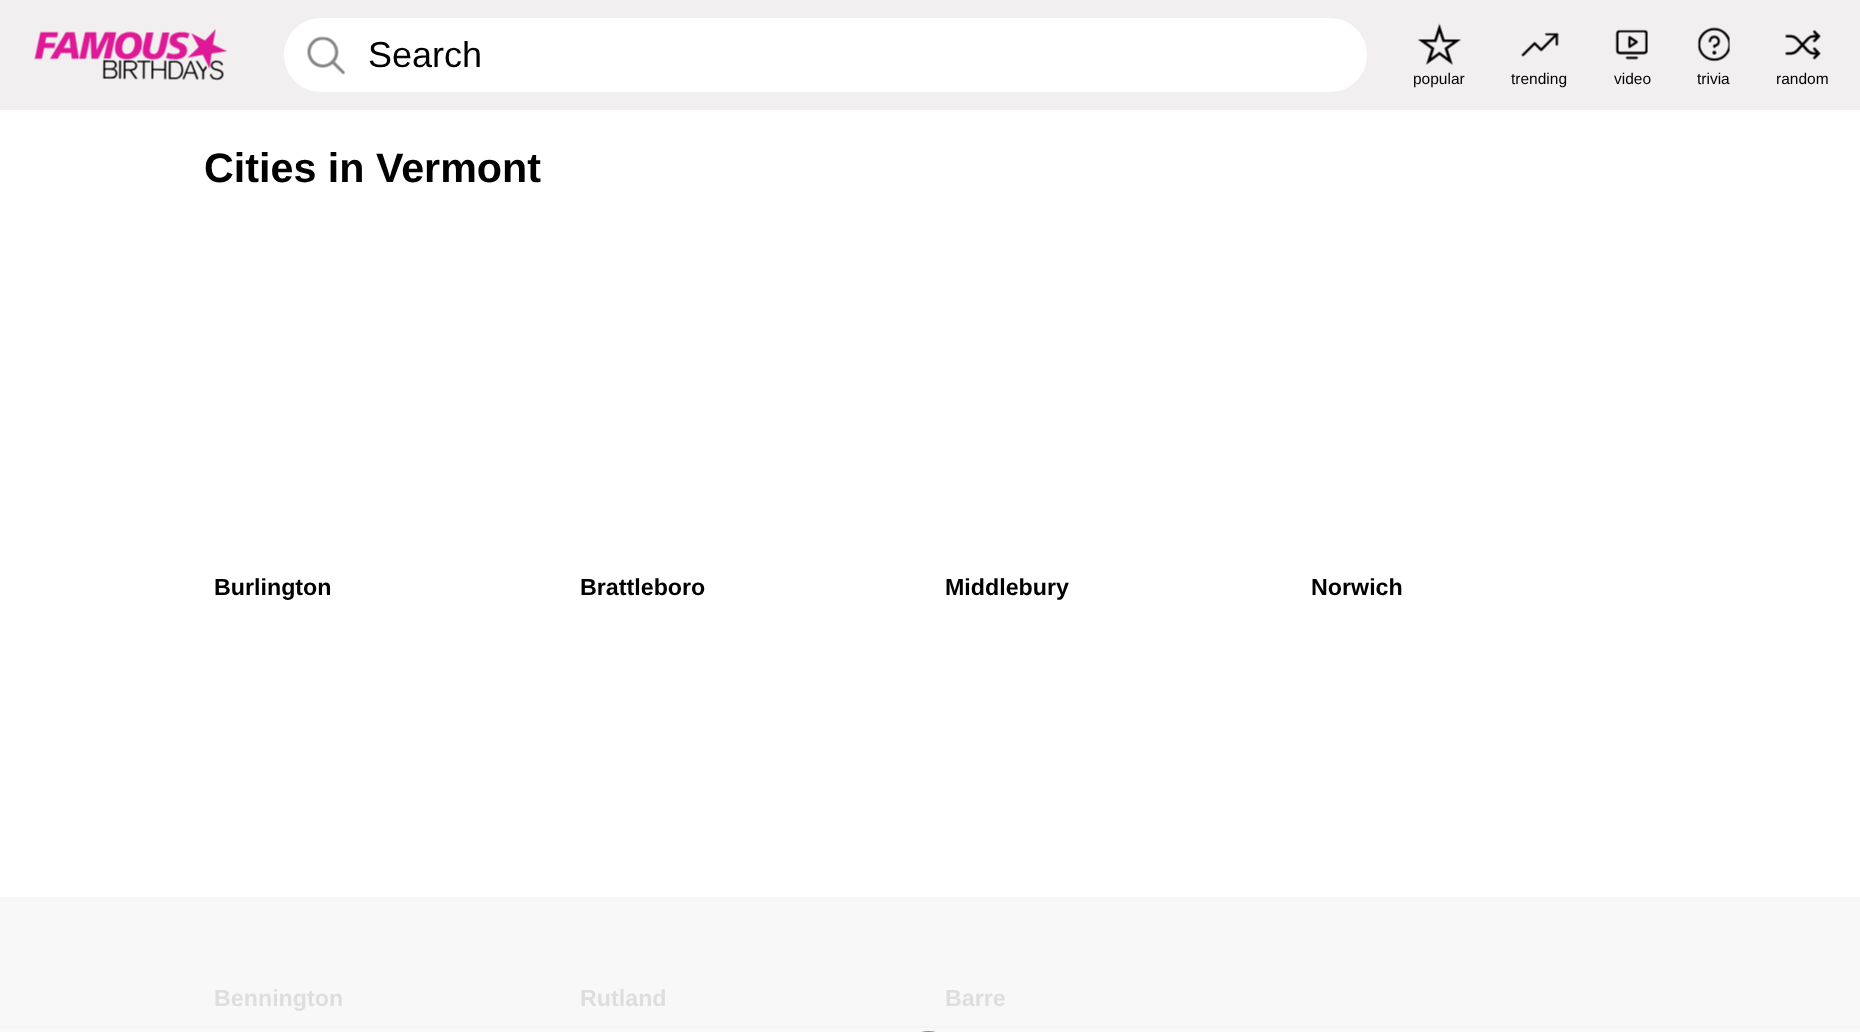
<?xml version="1.0" encoding="UTF-8"?>
<svg xmlns="http://www.w3.org/2000/svg" xmlns:xlink="http://www.w3.org/1999/xlink" width="1860" height="1032">
  <rect width="100%" height="100%" fill="#ffffff" />
  <rect y="897" width="1860" height="129" fill="#f8f8f8" />
  <rect width="1860" height="110" fill="#f1efef" />
  <image x="34" y="29" width="193" height="52" xlink:href="image1.png" />
  <rect x="285" y="19" width="1081" height="72" rx="36" fill="#ffffff" stroke="#ffffff" stroke-width="2" />
  <image x="307" y="36" width="38" height="39" xlink:href="image2.png" />
  <image x="1417" y="23" width="44" height="42" xlink:href="image3.png" />
  <image x="1521" y="32" width="38" height="25" xlink:href="image4.png" />
  <image x="1615" y="29" width="33" height="31" xlink:href="image5.png" />
  <image x="1697" y="27" width="33" height="35" xlink:href="image6.png" />
  <image x="1785" y="30" width="36" height="30" xlink:href="image7.png" />
  <rect y="1028" width="1860" height="4" fill="#f8f8f8" />
  <rect y="1026" width="1860" height="2" fill="#f5f5f5" />
  <rect x="913" y="1032" width="31" height="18" rx="15.5" fill="none" stroke="#888888" stroke-width="2" />
  <text x="368" y="67" style="font-family: Liberation Sans; font-size: 36px; fill: #000000">Search</text>
  <text x="1413" y="84" style="font-family: Liberation Sans; font-size: 15.5px; fill: #000000">popular</text>
  <text x="1511" y="84" style="font-family: Liberation Sans; font-size: 15.5px; fill: #000000">trending</text>
  <text x="1614" y="84" style="font-family: Liberation Sans; font-size: 15.5px; fill: #000000">video</text>
  <text x="1697" y="84" style="font-family: Liberation Sans; font-size: 15.5px; fill: #000000">trivia</text>
  <text x="1776" y="84" style="font-family: Liberation Sans; font-size: 15.5px; fill: #000000">random</text>
  <text x="204" y="182" style="font-family: Liberation Sans; font-size: 41.25px; font-weight: bold; fill: #000000">Cities in Vermont</text>
  <text x="214" y="595" style="font-family: Liberation Sans; font-size: 23.25px; font-weight: bold; fill: #000000">Burlington</text>
  <text x="580" y="595" style="font-family: Liberation Sans; font-size: 23.25px; font-weight: bold; fill: #000000">Brattleboro</text>
  <text x="945" y="595" style="font-family: Liberation Sans; font-size: 23.25px; font-weight: bold; fill: #000000">Middlebury</text>
  <text x="1311" y="595" style="font-family: Liberation Sans; font-size: 23.25px; font-weight: bold; fill: #000000">Norwich</text>
  <text x="214" y="1006" style="font-family: Liberation Sans; font-size: 23.25px; font-weight: bold; fill: #dedede">Bennington</text>
  <text x="580" y="1006" style="font-family: Liberation Sans; font-size: 23.25px; font-weight: bold; fill: #dedede">Rutland</text>
  <text x="945" y="1006" style="font-family: Liberation Sans; font-size: 23.25px; font-weight: bold; fill: #dedede">Barre</text>
</svg>
